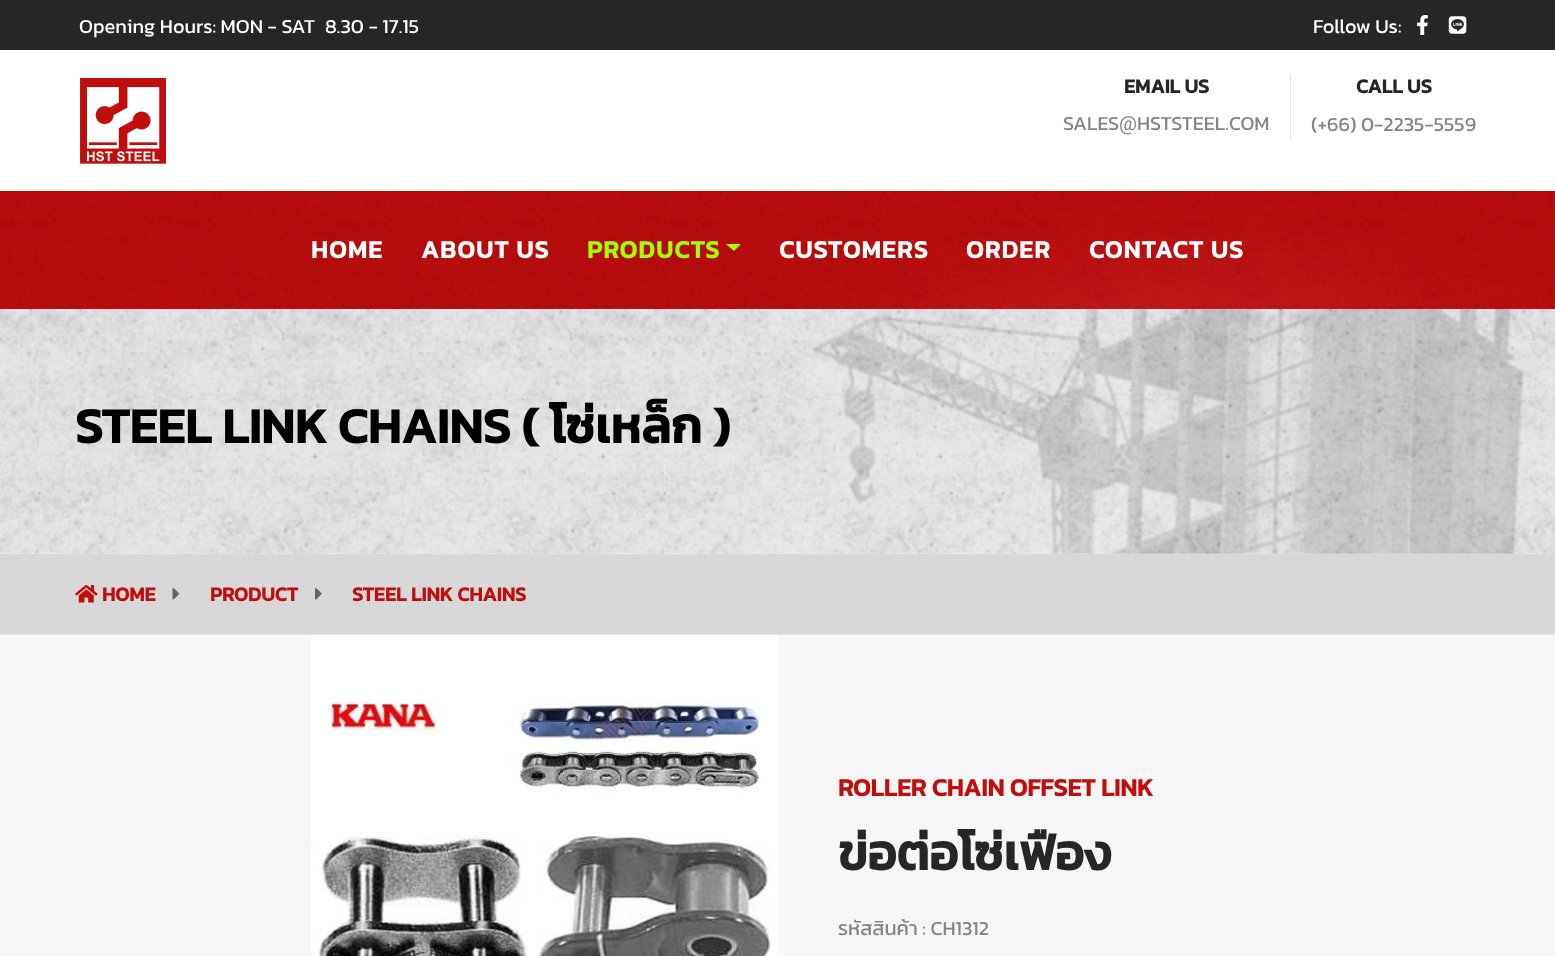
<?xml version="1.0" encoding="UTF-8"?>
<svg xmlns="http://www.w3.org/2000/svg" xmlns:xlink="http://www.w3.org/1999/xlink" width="1555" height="956">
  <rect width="100%" height="100%" fill="#ffffff" />
  <rect width="1555" height="50" fill="#262626" />
  <image x="1417" y="15" width="11" height="20" xlink:href="image1.png" />
  <image x="1448" y="16" width="19" height="18" xlink:href="image2.png" />
  <image x="80" y="78" width="86" height="86" xlink:href="image3.png" />
  <rect x="1290" y="74" width="1" height="65" fill="#dee2e6" />
  <rect y="191" width="1555" height="1" fill="#b60c0c" />
  <image x="0" y="191" width="1555" height="118" xlink:href="image4.png" />
  <path d="M 726 244 h 15 l -7 7 z" fill="#a2ff00" />
  <image x="0" y="309" width="1555" height="245" xlink:href="image5.png" />
  <rect y="554" width="1555" height="80" fill="#d8d8d8" />
  <rect y="634" width="1555" height="1" fill="#e6e8e9" />
  <image x="75" y="585" width="23" height="18" xlink:href="image6.png" />
  <image x="172" y="588" width="7" height="12" xlink:href="image7.png" />
  <image x="315" y="588" width="7" height="12" xlink:href="image8.png" />
  <rect y="635" width="1555" height="321" fill="#f6f6f6" />
  <image x="311" y="635" width="467" height="321" xlink:href="image9.png" />
  <text x="79" y="33" style="font-family: Kanit; font-size: 20px; fill: #ffffff">Opening Hours: MON - SAT</text>
  <text x="325" y="33" style="font-family: Kanit; font-size: 20px; fill: #ffffff">8.30 - 17.15</text>
  <text x="1313" y="33" style="font-family: Kanit; font-size: 20px; fill: #ffffff">Follow Us:</text>
  <text x="1124" y="93" style="font-family: Kanit; font-size: 20px; font-weight: bold; fill: #262626">EMAIL US</text>
  <text x="1063" y="130" style="font-family: Kanit; font-size: 20px; fill: #848484">SALES</text>
  <text x="1119" y="130" style="font-family: Roboto; font-size: 20px; fill: #848484">@</text>
  <text x="1137" y="130" style="font-family: Kanit; font-size: 20px; fill: #848484">HSTSTEEL.COM</text>
  <text x="1356" y="93" style="font-family: Kanit; font-size: 20px; font-weight: bold; fill: #262626">CALL US</text>
  <text x="1311" y="131" style="font-family: Kanit; font-size: 20px; fill: #848484">(+66) 0-2235-5559</text>
  <text x="311" y="258" style="font-family: Kanit; font-size: 25px; font-weight: bold; letter-spacing: 1.25px; fill: #ffffff">HOME</text>
  <text x="421" y="258" style="font-family: Kanit; font-size: 25px; font-weight: bold; letter-spacing: 1.25px; fill: #ffffff">ABOUT US</text>
  <text x="587" y="258" style="font-family: Kanit; font-size: 25px; font-weight: bold; letter-spacing: 1.25px; fill: #a2ff00">PRODUCTS</text>
  <text x="779" y="258" style="font-family: Kanit; font-size: 25px; font-weight: bold; letter-spacing: 1.25px; fill: #ffffff">CUSTOMERS</text>
  <text x="966" y="258" style="font-family: Kanit; font-size: 25px; font-weight: bold; letter-spacing: 1.25px; fill: #ffffff">ORDER</text>
  <text x="1089" y="258" style="font-family: Kanit; font-size: 25px; font-weight: bold; letter-spacing: 1.25px; fill: #ffffff">CONTACT US</text>
  <text x="75" y="443" style="font-family: Kanit; font-size: 50px; font-weight: bold; fill: #000000">STEEL LINK CHAINS ( โซ่เหล็ก )</text>
  <text x="102" y="601" style="font-family: Kanit; font-size: 20px; font-weight: bold; fill: #c00d0d">HOME</text>
  <text x="210" y="601" style="font-family: Kanit; font-size: 20px; font-weight: bold; fill: #c00d0d">PRODUCT</text>
  <text x="352" y="601" style="font-family: Kanit; font-size: 20px; font-weight: bold; fill: #c00d0d">STEEL LINK CHAINS</text>
  <text x="838" y="796" style="font-family: Kanit; font-size: 25px; font-weight: bold; fill: #c00d0d">ROLLER CHAIN OFFSET LINK</text>
  <text x="838" y="870" style="font-family: Kanit; font-size: 50px; font-weight: bold; fill: #262626">ข่อต่อโซ่เฟือง</text>
  <text x="838" y="935" style="font-family: Kanit; font-size: 20px; fill: #848484">รหัสสินค้า : CH1312</text>
</svg>
